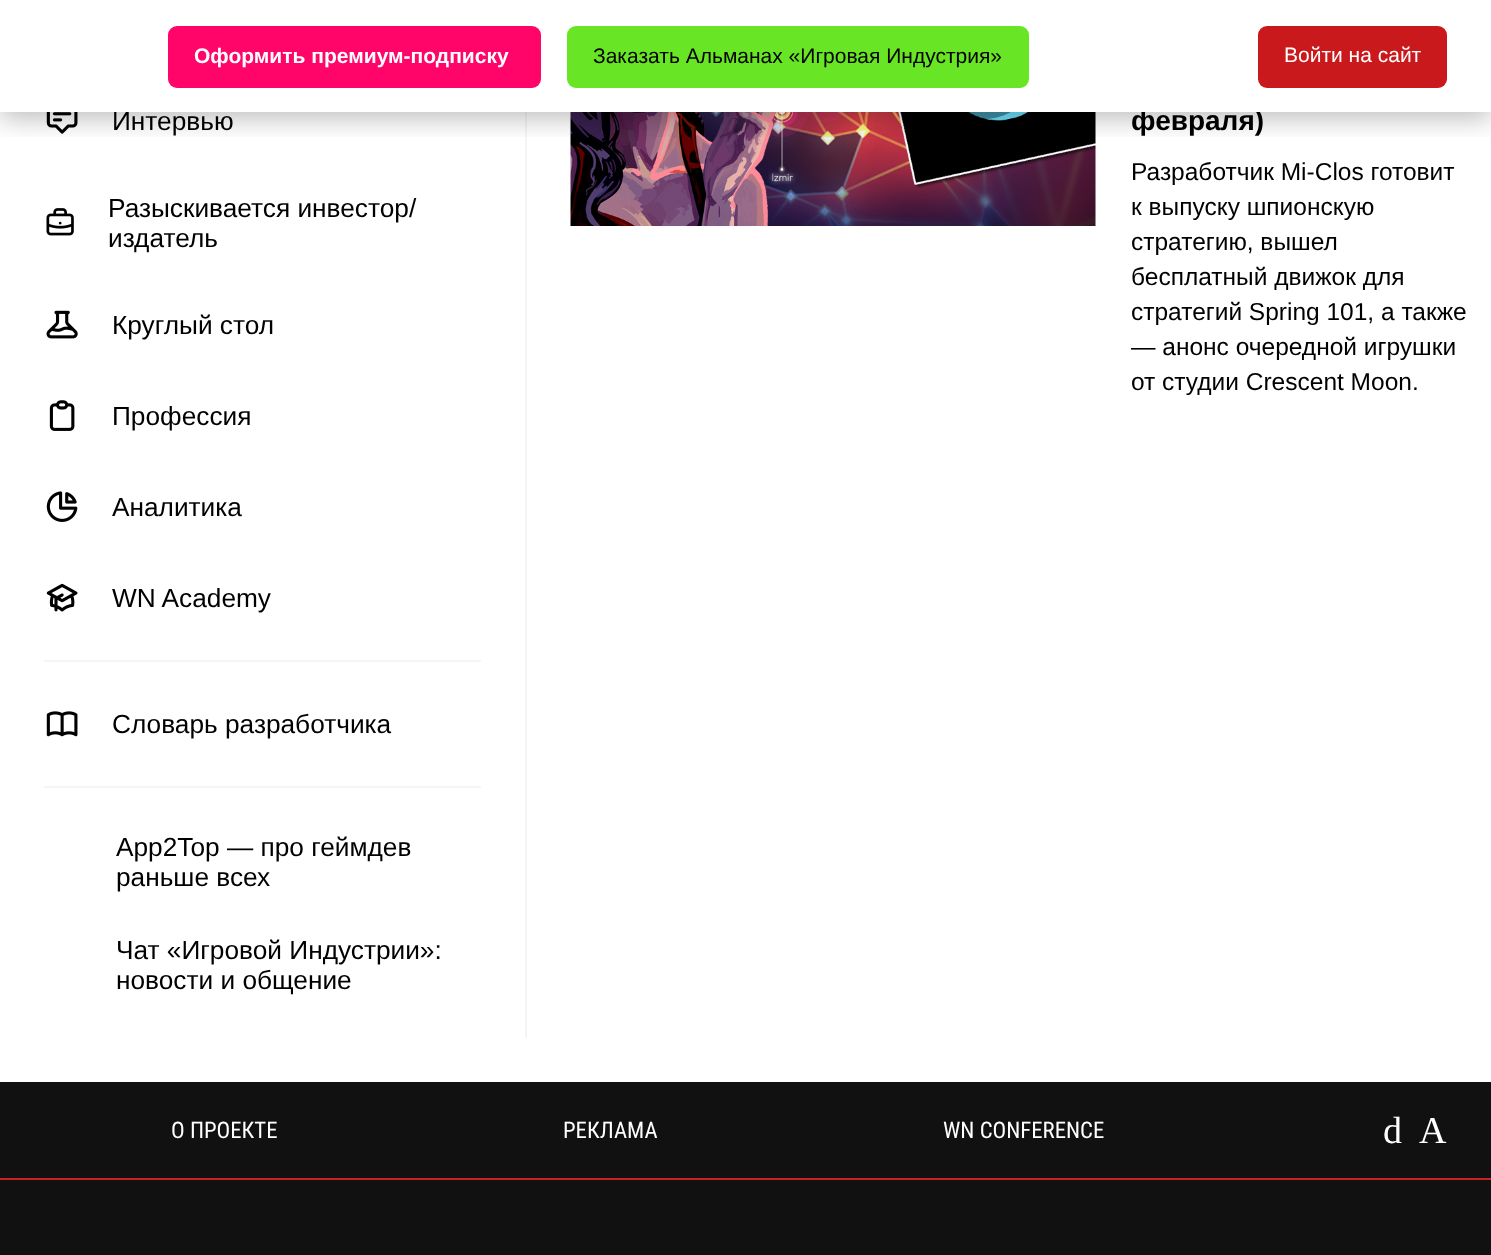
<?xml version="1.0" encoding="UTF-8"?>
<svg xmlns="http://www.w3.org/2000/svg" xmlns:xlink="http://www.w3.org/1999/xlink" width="1491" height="1255">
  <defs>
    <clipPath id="clip1"><rect x="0" y="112" width="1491" height="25" /></clipPath>
  </defs>
  <rect width="100%" height="100%" fill="#111111" />
  <rect y="112" width="1491" height="970" fill="#ffffff" />
  <rect x="525" y="112" width="2" height="926" fill="#f5f5f5" />
  <image x="46" y="112" width="32" height="22" xlink:href="image1.png" />
  <image x="46" y="208" width="28" height="28" xlink:href="image2.png" />
  <image x="46" y="310" width="32" height="29" xlink:href="image3.png" />
  <image x="49" y="400" width="26" height="31" xlink:href="image4.png" />
  <image x="46" y="491" width="32" height="31" xlink:href="image5.png" />
  <image x="46" y="583" width="32" height="29" xlink:href="image6.png" />
  <rect x="44" y="660" width="437" height="2" fill="#f5f5f5" />
  <rect x="44" y="786" width="437" height="2" fill="#f5f5f5" />
  <image x="46" y="711" width="32" height="26" xlink:href="image7.png" />
  <image x="570" y="112" width="526" height="114" xlink:href="image8.png" />
  <rect y="1178" width="1491" height="2" fill="#c92128" />
  <text x="112" y="130" style="font-family: Liberation Sans; font-size: 26.25px; fill: #000000">Интервью</text>
  <text x="108" y="217" style="font-family: Liberation Sans; font-size: 26.25px; fill: #000000">Разыскивается инвестор/</text>
  <text x="108" y="247" style="font-family: Liberation Sans; font-size: 26.25px; fill: #000000">издатель</text>
  <text x="112" y="334" style="font-family: Liberation Sans; font-size: 26.25px; fill: #000000">Круглый стол</text>
  <text x="112" y="425" style="font-family: Liberation Sans; font-size: 26.25px; fill: #000000">Профессия</text>
  <text x="112" y="516" style="font-family: Liberation Sans; font-size: 26.25px; fill: #000000">Аналитика</text>
  <text x="112" y="607" style="font-family: Liberation Sans; font-size: 26.25px; fill: #000000">WN Academy</text>
  <text x="112" y="733" style="font-family: Liberation Sans; font-size: 26.25px; fill: #000000">Словарь разработчика</text>
  <text x="116" y="856" style="font-family: Liberation Sans; font-size: 26.25px; fill: #000000">App2Top — про геймдев</text>
  <text x="116" y="886" style="font-family: Liberation Sans; font-size: 26.25px; fill: #000000">раньше всех</text>
  <text x="116" y="959" style="font-family: Liberation Sans; font-size: 26.25px; fill: #000000">Чат «Игровой Индустрии»:</text>
  <text x="116" y="989" style="font-family: Liberation Sans; font-size: 26.25px; fill: #000000">новости и общение</text>
  <text x="1131" y="130" style="font-family: Liberation Sans; font-size: 28px; font-weight: bold; fill: #000000">февраля)</text>
  <rect width="1491" height="112" fill="#ffffff" />
  <g clip-path="url(#clip1)">
    <rect y="7" width="1491" height="112" fill="#000000" fill-opacity="0.25" filter="blur(13px)" />
  </g>
  <rect x="1258" y="26" width="189" height="62" rx="9" fill="#ca191d" />
  <text x="1284" y="62" style="font-family: Liberation Sans; font-size: 21px; fill: #ffffff">Войти на сайт</text>
  <rect x="567" y="26" width="462" height="62" rx="9" fill="#68e524" />
  <text x="593" y="63" style="font-family: Liberation Sans; font-size: 21px; fill: #000000">Заказать Альманах «Игровая Индустрия»</text>
  <rect x="168" y="26" width="373" height="62" rx="9" fill="#ff0569" />
  <text x="194" y="63" style="font-family: Liberation Sans; font-size: 21px; font-weight: bold; fill: #ffffff">Оформить премиум-подписку</text>
  <text x="1131" y="180" style="font-family: Liberation Sans; font-size: 24.5px; fill: #000000">Разработчик Mi-Clos готовит</text>
  <text x="1131" y="215" style="font-family: Liberation Sans; font-size: 24.5px; fill: #000000">к выпуску шпионскую</text>
  <text x="1131" y="250" style="font-family: Liberation Sans; font-size: 24.5px; fill: #000000">стратегию, вышел</text>
  <text x="1131" y="285" style="font-family: Liberation Sans; font-size: 24.5px; fill: #000000">бесплатный движок для</text>
  <text x="1131" y="320" style="font-family: Liberation Sans; font-size: 24.5px; fill: #000000">стратегий Spring 101, а также</text>
  <text x="1131" y="355" style="font-family: Liberation Sans; font-size: 24.5px; fill: #000000">— анонс очередной игрушки</text>
  <text x="1131" y="390" style="font-family: Liberation Sans; font-size: 24.5px; fill: #000000">от студии Crescent Moon.</text>
  <text x="171" y="1138" style="font-family: Roboto Condensed; font-size: 22.75px; fill: #ffffff">О ПРОЕКТЕ</text>
  <text x="563" y="1138" style="font-family: Roboto Condensed; font-size: 22.75px; fill: #ffffff">РЕКЛАМА</text>
  <text x="943" y="1138" style="font-family: Roboto Condensed; font-size: 22.75px; fill: #ffffff">WN CONFERENCE</text>
  <text x="1383" y="1143" style="font-family: Liberation Serif; font-size: 38px; fill: #ffffff">d</text>
  <text x="1419" y="1143" style="font-family: Liberation Serif; font-size: 38px; fill: #ffffff">A</text>
</svg>
